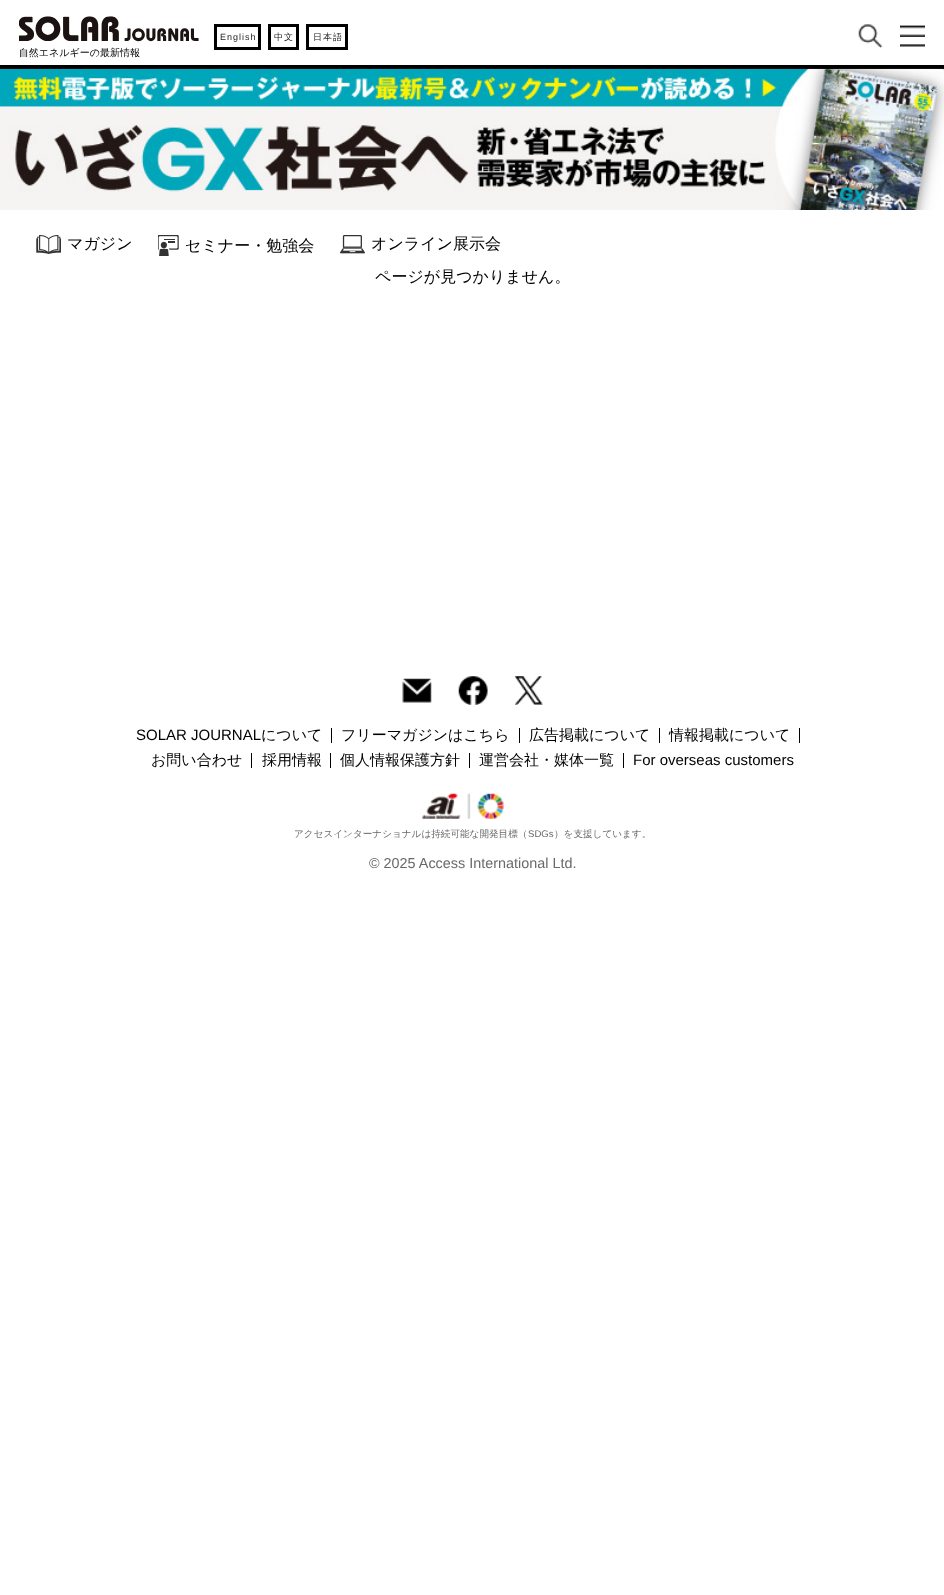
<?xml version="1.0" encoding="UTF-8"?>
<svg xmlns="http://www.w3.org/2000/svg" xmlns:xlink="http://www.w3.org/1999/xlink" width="944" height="1595">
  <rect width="100%" height="100%" fill="#ffffff" />
  <rect y="65" width="944" height="4" fill="#000000" />
  <image x="19" y="16" width="180" height="42" xlink:href="image1.png" />
  <rect x="215.5" y="25.5" width="44" height="23" fill="none" stroke="#000000" stroke-width="3" />
  <rect x="269.5" y="25.5" width="28" height="23" fill="none" stroke="#000000" stroke-width="3" />
  <rect x="307.5" y="25.5" width="39" height="23" fill="none" stroke="#000000" stroke-width="3" />
  <image x="858" y="24" width="25" height="25" xlink:href="image2.png" />
  <image x="900" y="25" width="25" height="22" xlink:href="image3.png" />
  <image x="0" y="68" width="944" height="142" xlink:href="image4.png" />
  <image x="36" y="235" width="25" height="19" xlink:href="image5.png" />
  <image x="158" y="235" width="21" height="21" xlink:href="image6.png" />
  <image x="340" y="235" width="25" height="19" xlink:href="image7.png" />
  <image x="402" y="678" width="30" height="25" xlink:href="image8.png" />
  <image x="458" y="676" width="30" height="29" xlink:href="image9.png" />
  <image x="515" y="676" width="28" height="29" xlink:href="image10.png" />
  <rect x="331" y="728" width="1" height="15" fill="#000000" />
  <rect x="519" y="728" width="1" height="15" fill="#000000" />
  <rect x="659" y="728" width="1" height="15" fill="#000000" />
  <rect x="799" y="728" width="1" height="15" fill="#000000" />
  <rect x="251" y="753" width="1" height="15" fill="#000000" />
  <rect x="330" y="753" width="1" height="15" fill="#000000" />
  <rect x="469" y="753" width="1" height="15" fill="#000000" />
  <rect x="623" y="753" width="1" height="15" fill="#000000" />
  <image x="422" y="793" width="82" height="26" xlink:href="image11.png" />
  <text x="220" y="40" style="font-family: Liberation Sans; font-size: 9px; letter-spacing: 1px; fill: #212529">English</text>
  <text x="274" y="40" style="font-family: WenQuanYi Zen Hei; font-size: 9px; font-weight: 500; letter-spacing: 1px; fill: #212529">中文</text>
  <text x="313" y="40" style="font-family: WenQuanYi Zen Hei; font-size: 9px; font-weight: 500; letter-spacing: 1px; fill: #212529">日本語</text>
  <text x="67" y="249" style="font-family: WenQuanYi Zen Hei; font-size: 16px; font-weight: 500; fill: #000000">マガジン</text>
  <text x="185" y="251" style="font-family: WenQuanYi Zen Hei; font-size: 16px; font-weight: 500; fill: #000000">セミナー・勉強会</text>
  <text x="371" y="249" style="font-family: WenQuanYi Zen Hei; font-size: 16px; font-weight: 500; fill: #000000">オンライン展示会</text>
  <text x="375" y="282" style="font-family: WenQuanYi Zen Hei; font-size: 16px; font-weight: 500; fill: #000000">ページが見つかりません。</text>
  <text x="136" y="740" style="font-family: Liberation Sans; font-size: 15px; fill: #000000">SOLAR JOURNAL</text>
  <text x="261" y="740" style="font-family: WenQuanYi Zen Hei; font-size: 15px; font-weight: 500; fill: #000000">について</text>
  <text x="341" y="740" style="font-family: WenQuanYi Zen Hei; font-size: 15px; font-weight: 500; fill: #000000">フリーマガジンはこちら</text>
  <text x="529" y="740" style="font-family: WenQuanYi Zen Hei; font-size: 15px; font-weight: 500; fill: #000000">広告掲載について</text>
  <text x="669" y="740" style="font-family: WenQuanYi Zen Hei; font-size: 15px; font-weight: 500; fill: #000000">情報掲載について</text>
  <text x="151" y="765" style="font-family: WenQuanYi Zen Hei; font-size: 15px; font-weight: 500; fill: #000000">お問い合わせ</text>
  <text x="262" y="765" style="font-family: WenQuanYi Zen Hei; font-size: 15px; font-weight: 500; fill: #000000">採用情報</text>
  <text x="340" y="765" style="font-family: WenQuanYi Zen Hei; font-size: 15px; font-weight: 500; fill: #000000">個人情報保護方針</text>
  <text x="479" y="765" style="font-family: WenQuanYi Zen Hei; font-size: 15px; font-weight: 500; fill: #000000">運営会社・媒体一覧</text>
  <text x="633" y="765" style="font-family: Liberation Sans; font-size: 15px; fill: #000000">For overseas customers</text>
  <text x="294" y="837" style="font-family: WenQuanYi Zen Hei; font-size: 9.6px; font-weight: 500; fill: #696969">アクセスインターナショナルは持続可能な開発目標（</text>
  <text x="528" y="837" style="font-family: Liberation Sans; font-size: 9.6px; fill: #696969">SDGs</text>
  <text x="554" y="837" style="font-family: WenQuanYi Zen Hei; font-size: 9.6px; font-weight: 500; fill: #696969">）を支援しています。</text>
  <text x="369" y="868" style="font-family: Liberation Sans; font-size: 14.4px; fill: #696969">© 2025 Access International Ltd.</text>
</svg>
